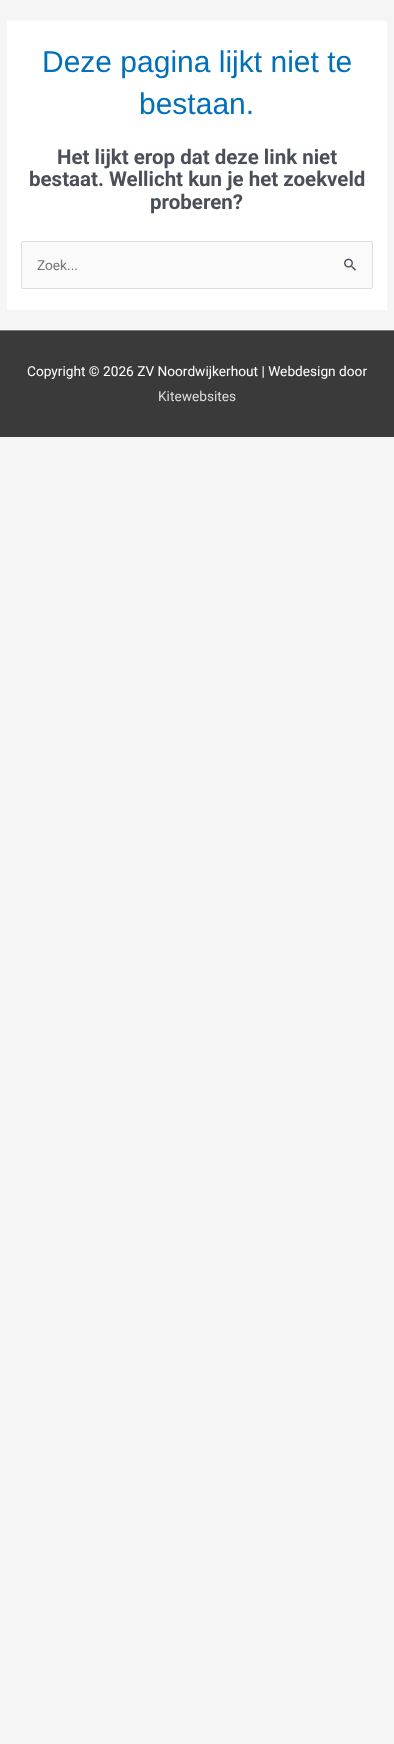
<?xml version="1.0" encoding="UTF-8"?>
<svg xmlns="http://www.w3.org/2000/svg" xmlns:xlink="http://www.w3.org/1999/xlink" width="394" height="1744">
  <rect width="100%" height="100%" fill="#f5f5f5" />
  <rect x="7" y="21" width="380" height="289" fill="#ffffff" />
  <rect x="21.5" y="241.5" width="351" height="47" rx="1.5" fill="#fafafa" stroke="#dddddd" />
  <image x="344" y="258" width="12" height="13" xlink:href="image1.png" />
  <rect y="330" width="394" height="1" fill="#7a7a7a" />
  <rect y="331" width="394" height="106" fill="#3a3a3a" />
  <text x="42" y="72" style="font-family: Liberation Sans; font-size: 30px; fill: #0170b9">Deze pagina lijkt niet te</text>
  <text x="139" y="114" style="font-family: Liberation Sans; font-size: 30px; fill: #0170b9">bestaan.</text>
  <text x="57" y="164" style="font-family: Roboto; font-size: 20.5px; font-weight: bold; fill: #4b4f58">Het lijkt erop dat deze link niet</text>
  <text x="29" y="186" style="font-family: Roboto; font-size: 20.5px; font-weight: bold; fill: #4b4f58">bestaat. Wellicht kun je het zoekveld</text>
  <text x="150" y="209" style="font-family: Roboto; font-size: 20.5px; font-weight: bold; fill: #4b4f58">proberen?</text>
  <text x="37" y="270" style="font-family: Roboto; font-size: 13.7px; fill: #757575">Zoek...</text>
  <text x="27" y="376" style="font-family: Roboto; font-size: 13.7px; fill: #ffffff">Copyright © 2026 ZV Noordwijkerhout | Webdesign door</text>
  <text x="158" y="401" style="font-family: Roboto; font-size: 13.7px; fill: #dddddd">Kitewebsites</text>
</svg>
